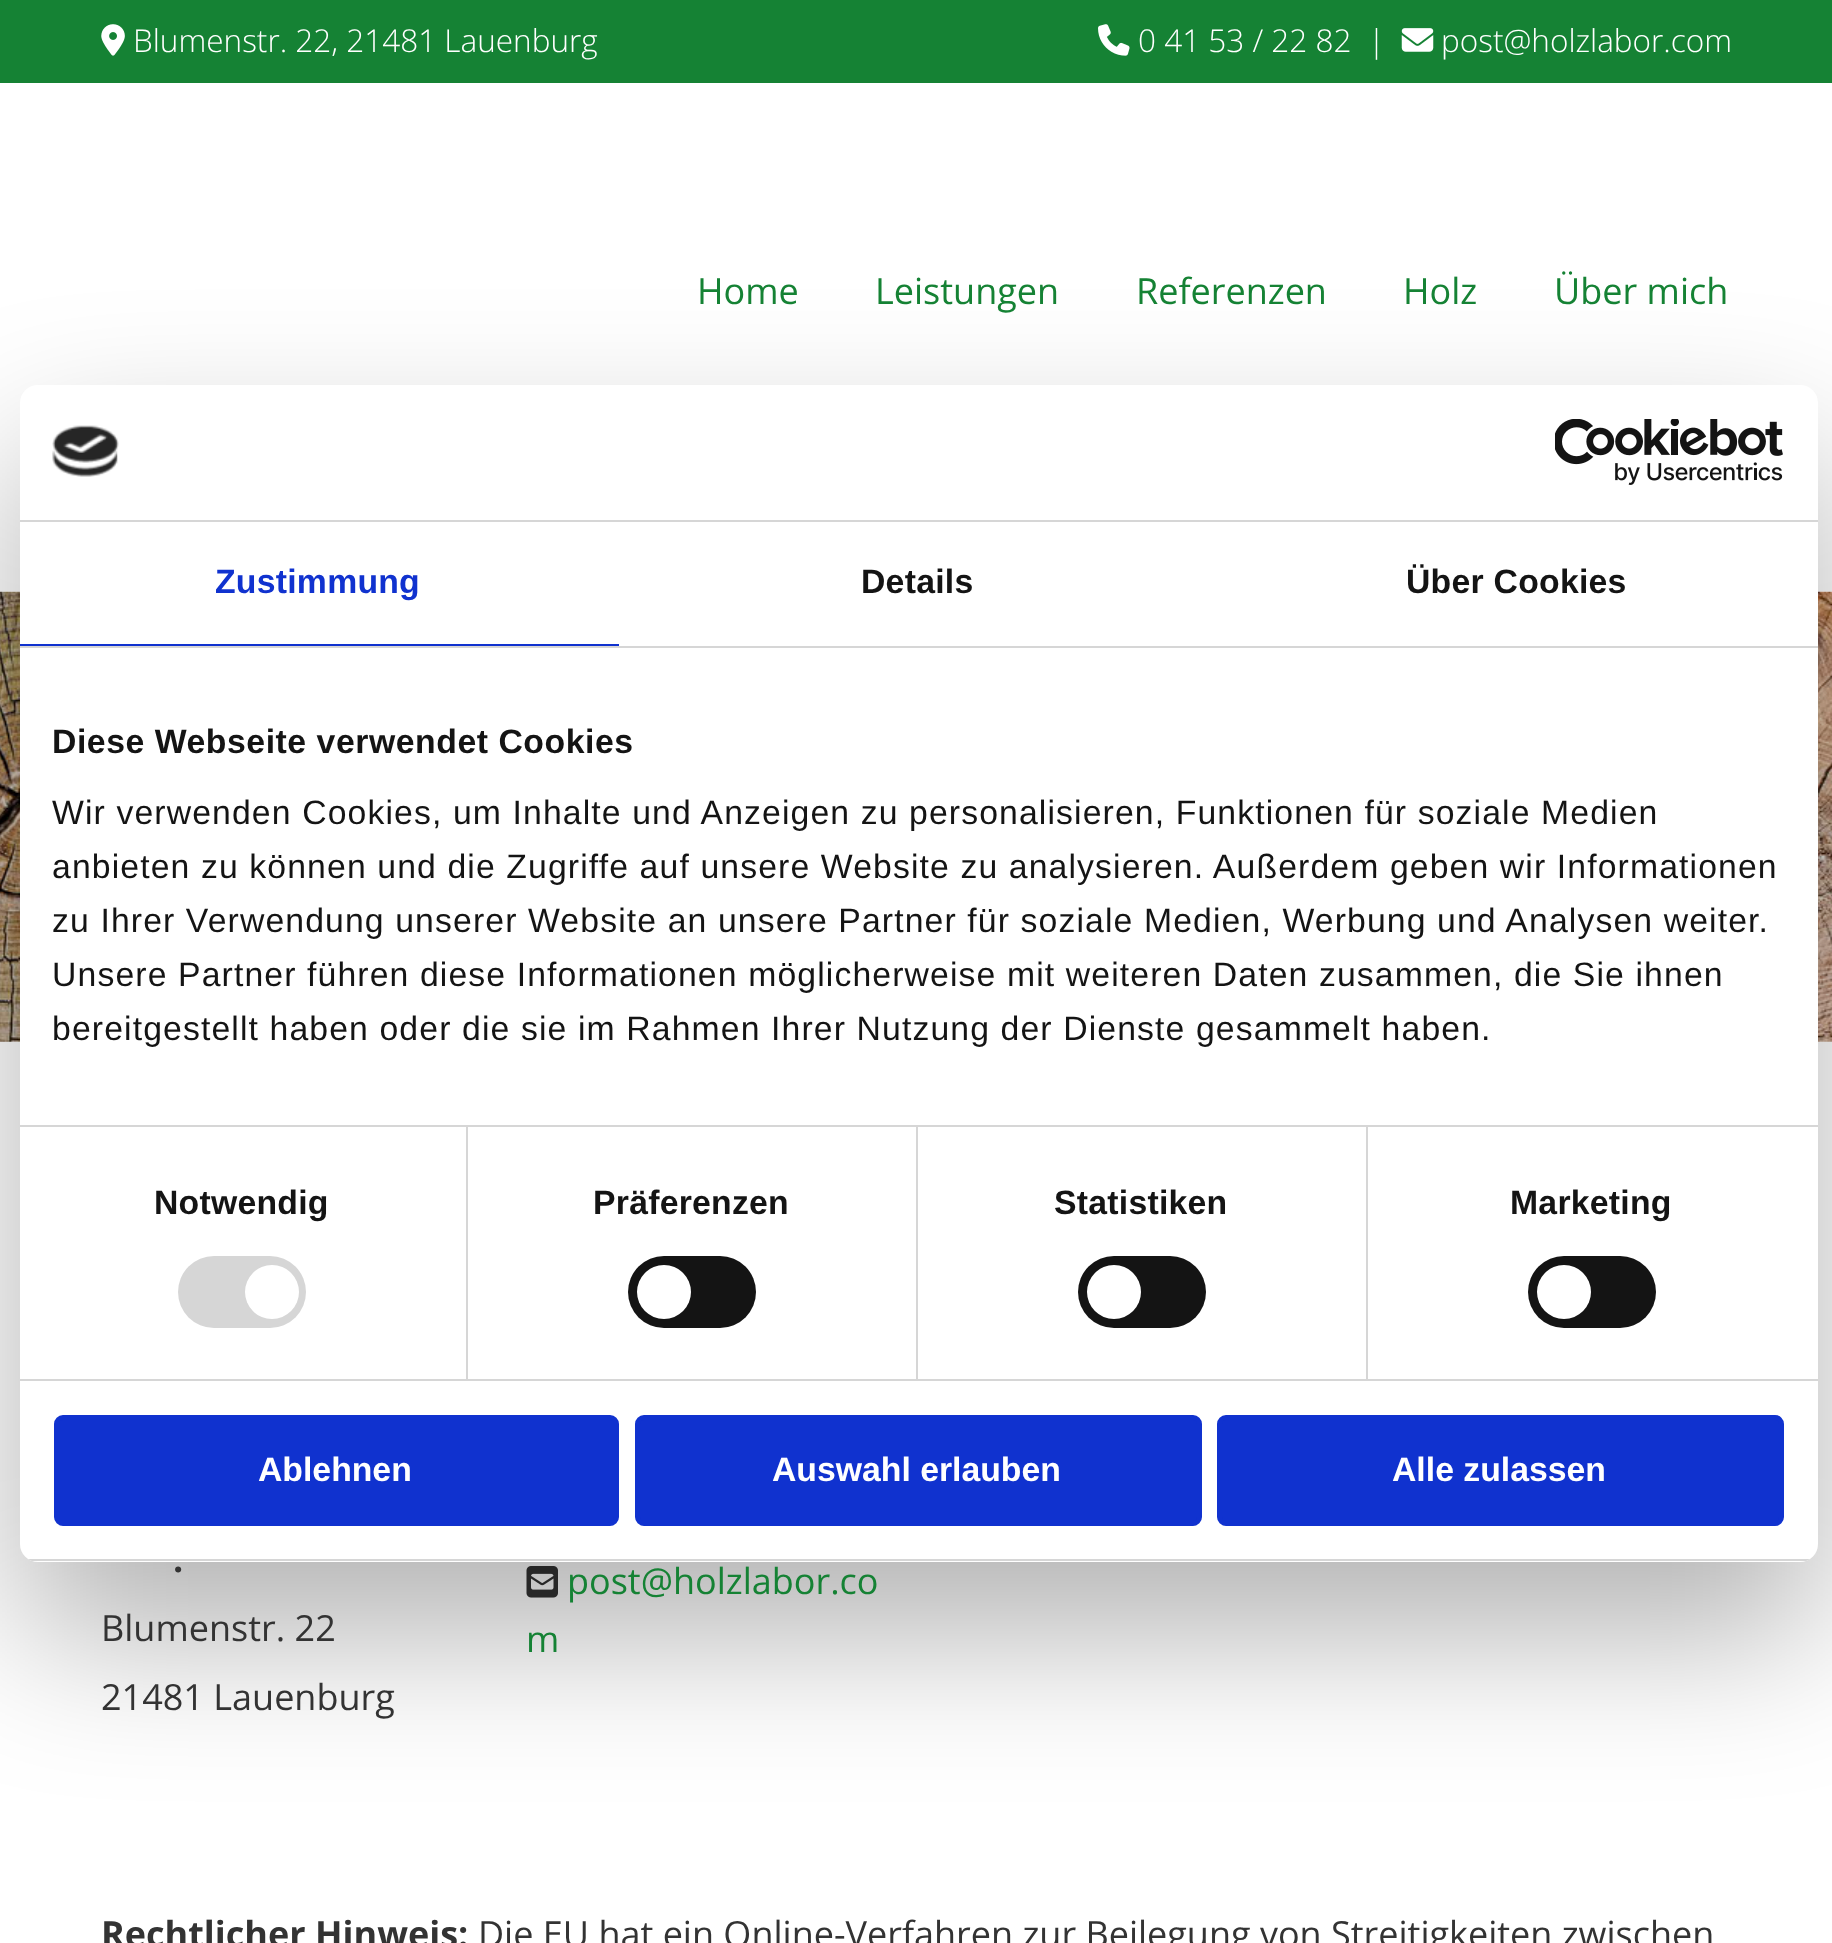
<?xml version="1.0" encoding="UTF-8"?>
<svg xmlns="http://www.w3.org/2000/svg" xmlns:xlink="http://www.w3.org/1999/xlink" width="1832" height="1943">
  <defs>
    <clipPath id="clip1"><rect x="20" y="385" width="1798" height="1177" rx="18" /></clipPath>
  </defs>
  <rect width="100%" height="100%" fill="#ffffff" />
  <rect width="1832" height="83" fill="#158234" />
  <image x="101" y="24" width="24" height="32" xlink:href="image1.png" />
  <image x="1098" y="24" width="32" height="32" xlink:href="image2.png" />
  <image x="1401" y="28" width="33" height="24" xlink:href="image3.png" />
  <image x="0" y="591" width="1832" height="451" xlink:href="image4.png" />
  <image x="526" y="1566" width="32" height="32" xlink:href="image5.png" />
  <rect x="20" y="457" width="1798" height="1177" rx="18" fill="#000000" fill-opacity="0.3" filter="blur(76.5px)" />
  <rect x="20" y="385" width="1798" height="1177" rx="18" fill="#ffffff" />
  <rect x="20" y="520" width="1798" height="2" fill="#d6d6d6" />
  <image x="52" y="425" width="67" height="52" xlink:href="image6.png" />
  <image x="1555" y="419" width="228" height="66" xlink:href="image7.png" />
  <rect x="20" y="646" width="1798" height="2" fill="#d6d6d6" />
  <rect x="20" y="644" width="599" height="2" fill="#1032cf" />
  <rect x="20" y="1125" width="1798" height="2" fill="#d6d6d6" />
  <rect x="20" y="1379" width="1798" height="2" fill="#d6d6d6" />
  <rect x="466" y="1127" width="2" height="252" fill="#d6d6d6" />
  <rect x="178" y="1256" width="128" height="72" rx="36" fill="#d6d6d6" />
  <circle cx="272" cy="1292" r="27" fill="#ffffff" />
  <rect x="916" y="1127" width="2" height="252" fill="#d6d6d6" />
  <rect x="628" y="1256" width="128" height="72" rx="36" fill="#141414" />
  <circle cx="664" cy="1292" r="27" fill="#ffffff" />
  <rect x="1366" y="1127" width="2" height="252" fill="#d6d6d6" />
  <rect x="1078" y="1256" width="128" height="72" rx="36" fill="#141414" />
  <circle cx="1114" cy="1292" r="27" fill="#ffffff" />
  <rect x="1528" y="1256" width="128" height="72" rx="36" fill="#141414" />
  <circle cx="1564" cy="1292" r="27" fill="#ffffff" />
  <g clip-path="url(#clip1)">
    <rect x="20" y="1559" width="1798" height="2" fill="#d6d6d6" />
  </g>
  <rect x="56.5" y="1417.5" width="560" height="106" rx="6.5" fill="#1032cf" stroke="#1032cf" stroke-width="5" />
  <rect x="637.5" y="1417.5" width="562" height="106" rx="6.5" fill="#1032cf" stroke="#1032cf" stroke-width="5" />
  <rect x="1219.5" y="1417.5" width="562" height="106" rx="6.5" fill="#1032cf" stroke="#1032cf" stroke-width="5" />
  <text x="133" y="52" style="font-family: Open Sans; font-size: 31.5px; font-weight: 300; fill: #ffffff">Blumenstr. 22, 21481 Lauenburg</text>
  <text x="1138" y="52" style="font-family: Open Sans; font-size: 31.5px; font-weight: 300; fill: #ffffff">0 41 53 / 22 82</text>
  <text x="1368" y="52" style="font-family: Open Sans; font-size: 31.5px; font-weight: 300; fill: #ffffff">|</text>
  <text x="1441" y="52" style="font-family: Open Sans; font-size: 31.5px; font-weight: 300; fill: #ffffff">post@holzlabor.com</text>
  <text x="697" y="304" style="font-family: Open Sans; font-size: 36px; fill: #158234">Home</text>
  <text x="875" y="304" style="font-family: Open Sans; font-size: 36px; fill: #158234">Leistungen</text>
  <text x="1136" y="304" style="font-family: Open Sans; font-size: 36px; fill: #158234">Referenzen</text>
  <text x="1403" y="304" style="font-family: Open Sans; font-size: 36px; fill: #158234">Holz</text>
  <text x="1554" y="304" style="font-family: Open Sans; font-size: 36px; fill: #158234">Über mich</text>
  <text x="173" y="1572" style="font-family: Open Sans; font-size: 36px; font-weight: bold; fill: #333333">.</text>
  <text x="101" y="1641" style="font-family: Open Sans; font-size: 36px; fill: #333333">Blumenstr. 22</text>
  <text x="101" y="1710" style="font-family: Open Sans; font-size: 36px; fill: #333333">21481 Lauenburg</text>
  <text x="567" y="1594" style="font-family: Open Sans; font-size: 36px; fill: #158234">post@holzlabor.co</text>
  <text x="526" y="1652" style="font-family: Open Sans; font-size: 36px; fill: #158234">m</text>
  <text x="101" y="1947" style="font-family: Open Sans; font-size: 36px; font-weight: bold; fill: #333333">Rechtlicher Hinweis:</text>
  <text x="478" y="1947" style="font-family: Open Sans; font-size: 36px; fill: #333333">Die EU hat ein Online-Verfahren zur Beilegung von Streitigkeiten zwischen</text>
  <text x="215" y="593" style="font-family: Liberation Sans; font-size: 33.75px; font-weight: bold; letter-spacing: 0.25px; fill: #1032cf">Zustimmung</text>
  <text x="861" y="593" style="font-family: Liberation Sans; font-size: 33.75px; font-weight: bold; letter-spacing: 0.25px; fill: #141414">Details</text>
  <text x="1406" y="593" style="font-family: Liberation Sans; font-size: 33.75px; font-weight: bold; letter-spacing: 0.25px; fill: #141414">Über Cookies</text>
  <text x="52" y="753" style="font-family: Liberation Sans; font-size: 33.75px; font-weight: bold; letter-spacing: 0.55px; fill: #141414">Diese Webseite verwendet Cookies</text>
  <text x="52" y="824" style="font-family: Liberation Sans; font-size: 33.75px; letter-spacing: 1.12px; fill: #141414">Wir verwenden Cookies, um Inhalte und Anzeigen zu personalisieren, Funktionen für soziale Medien</text>
  <text x="52" y="878" style="font-family: Liberation Sans; font-size: 33.75px; letter-spacing: 1.12px; fill: #141414">anbieten zu können und die Zugriffe auf unsere Website zu analysieren. Außerdem geben wir Informationen</text>
  <text x="52" y="932" style="font-family: Liberation Sans; font-size: 33.75px; letter-spacing: 1.12px; fill: #141414">zu Ihrer Verwendung unserer Website an unsere Partner für soziale Medien, Werbung und Analysen weiter.</text>
  <text x="52" y="986" style="font-family: Liberation Sans; font-size: 33.75px; letter-spacing: 1.12px; fill: #141414">Unsere Partner führen diese Informationen möglicherweise mit weiteren Daten zusammen, die Sie ihnen</text>
  <text x="52" y="1040" style="font-family: Liberation Sans; font-size: 33.75px; letter-spacing: 1.12px; fill: #141414">bereitgestellt haben oder die sie im Rahmen Ihrer Nutzung der Dienste gesammelt haben.</text>
  <text x="154" y="1214" style="font-family: Liberation Sans; font-size: 33.75px; font-weight: bold; letter-spacing: 0.25px; fill: #141414">Notwendig</text>
  <text x="593" y="1214" style="font-family: Liberation Sans; font-size: 33.75px; font-weight: bold; letter-spacing: 0.25px; fill: #141414">Präferenzen</text>
  <text x="1054" y="1214" style="font-family: Liberation Sans; font-size: 33.75px; font-weight: bold; letter-spacing: 0.25px; fill: #141414">Statistiken</text>
  <text x="1510" y="1214" style="font-family: Liberation Sans; font-size: 33.75px; font-weight: bold; letter-spacing: 0.25px; fill: #141414">Marketing</text>
  <text x="258" y="1481" style="font-family: Liberation Sans; font-size: 33.75px; font-weight: bold; fill: #ffffff">Ablehnen</text>
  <text x="772" y="1481" style="font-family: Liberation Sans; font-size: 33.75px; font-weight: bold; fill: #ffffff">Auswahl erlauben</text>
  <text x="1392" y="1481" style="font-family: Liberation Sans; font-size: 33.75px; font-weight: bold; fill: #ffffff">Alle zulassen</text>
</svg>
